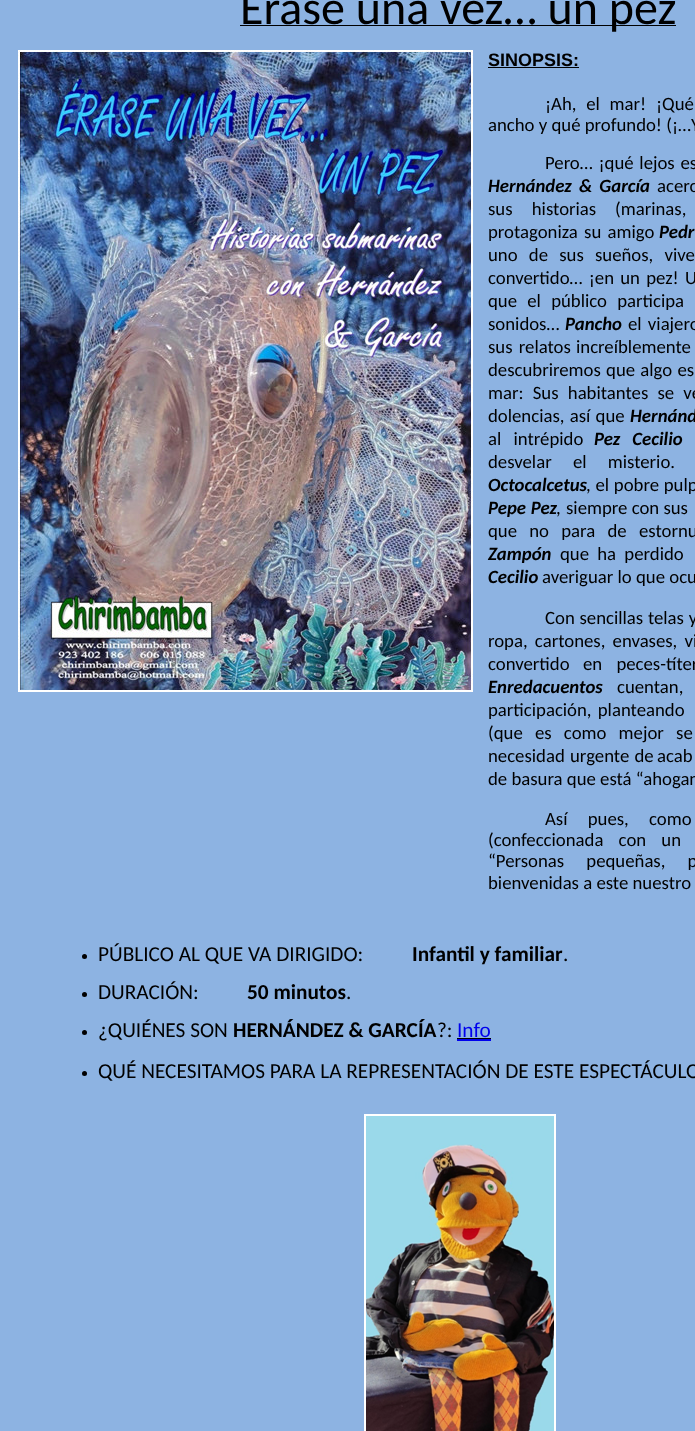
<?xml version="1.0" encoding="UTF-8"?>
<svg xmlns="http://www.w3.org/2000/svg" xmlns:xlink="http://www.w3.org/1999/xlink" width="695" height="1431">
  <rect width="100%" height="100%" fill="#8db3e2" />
  <rect x="240" y="25" width="436" height="1" fill="#000000" />
  <image x="18" y="50" width="455" height="642" xlink:href="image1.png" />
  <rect x="488" y="67" width="91" height="1" fill="#000000" />
  <circle cx="84.5" cy="956.5" r="2.5" fill="#000000" />
  <circle cx="84.5" cy="994.5" r="2.5" fill="#000000" />
  <circle cx="84.5" cy="1032.5" r="2.5" fill="#000000" />
  <rect x="457" y="1039" width="34" height="2" fill="#0000ee" />
  <rect x="457" y="1038" width="34" height="1" fill="#000000" />
  <circle cx="84.5" cy="1073.5" r="2.5" fill="#000000" />
  <image x="364" y="1114" width="192" height="317" xlink:href="image2.png" />
  <text x="240" y="24" style="font-family: Carlito; font-size: 48px; fill: #000000">Érase una vez… un pez</text>
  <text x="488" y="66" style="font-family: Liberation Sans; font-size: 18px; font-weight: bold; fill: #000000">SINOPSIS:</text>
  <text x="545" y="110" word-spacing="5.5" style="font-family: Carlito; font-size: 18.75px; fill: #000000">¡Ah, el mar! ¡Qué</text>
  <text x="488" y="131" style="font-family: Carlito; font-size: 18.75px; fill: #000000">ancho y qué profundo! (¡…Y</text>
  <text x="545" y="169" word-spacing="1.5" style="font-family: Carlito; font-size: 18.75px; fill: #000000">Pero… ¡qué lejos es</text>
  <text x="488" y="192" word-spacing="3" style="font-family: Carlito; font-size: 18.75px; font-weight: bold; font-style: italic; fill: #000000">Hernández &amp; García</text>
  <text x="657" y="192" word-spacing="3" style="font-family: Carlito; font-size: 18.75px; fill: #000000">acerc</text>
  <text x="488" y="215" word-spacing="15" style="font-family: Carlito; font-size: 18.75px; fill: #000000">sus historias</text>
  <text x="615" y="215" word-spacing="15" style="font-family: Carlito; font-size: 18.75px; fill: #000000">(marinas,</text>
  <text x="488" y="238" word-spacing="2" style="font-family: Carlito; font-size: 18.75px; fill: #000000">protagoniza su amigo</text>
  <text x="659" y="238" word-spacing="2" style="font-family: Carlito; font-size: 18.75px; font-weight: bold; font-style: italic; fill: #000000">Pedr</text>
  <text x="488" y="261" word-spacing="7" style="font-family: Carlito; font-size: 18.75px; fill: #000000">uno de sus sueños, vive</text>
  <text x="488" y="284" word-spacing="2" style="font-family: Carlito; font-size: 18.75px; fill: #000000">convertido… ¡en un pez!</text>
  <text x="685" y="284" word-spacing="2" style="font-family: Carlito; font-size: 18.75px; fill: #000000">U</text>
  <text x="488" y="307" word-spacing="6" style="font-family: Carlito; font-size: 18.75px; fill: #000000">que el público participa</text>
  <text x="488" y="330" style="font-family: Carlito; font-size: 18.75px; fill: #000000">sonidos…</text>
  <text x="565" y="330" style="font-family: Carlito; font-size: 18.75px; font-weight: bold; font-style: italic; fill: #000000">Pancho</text>
  <text x="628" y="330" word-spacing="2" style="font-family: Carlito; font-size: 18.75px; fill: #000000">el viajero</text>
  <text x="488" y="353" word-spacing="2" style="font-family: Carlito; font-size: 18.75px; fill: #000000">sus relatos</text>
  <text x="576" y="353" word-spacing="2" style="font-family: Carlito; font-size: 18.75px; fill: #000000">increíblemente</text>
  <text x="488" y="376" word-spacing="1" style="font-family: Carlito; font-size: 18.75px; fill: #000000">descubriremos que algo es</text>
  <text x="488" y="399" word-spacing="5" style="font-family: Carlito; font-size: 18.75px; fill: #000000">mar: Sus habitantes se ve</text>
  <text x="488" y="422" word-spacing="1" style="font-family: Carlito; font-size: 18.75px; fill: #000000">dolencias, así que</text>
  <text x="630" y="422" word-spacing="1.5" style="font-family: Carlito; font-size: 18.75px; font-weight: bold; font-style: italic; fill: #000000">Hernánd</text>
  <text x="488" y="445" word-spacing="8" style="font-family: Carlito; font-size: 18.75px; fill: #000000">al intrépido</text>
  <text x="594" y="445" word-spacing="8" style="font-family: Carlito; font-size: 18.75px; font-weight: bold; font-style: italic; fill: #000000">Pez Cecilio</text>
  <text x="488" y="468" word-spacing="17" style="font-family: Carlito; font-size: 18.75px; fill: #000000">desvelar el misterio.</text>
  <text x="488" y="491" style="font-family: Carlito; font-size: 18.75px; font-weight: bold; font-style: italic; fill: #000000">Octocalcetus</text>
  <text x="586" y="491" word-spacing="0.5" style="font-family: Carlito; font-size: 18.75px; fill: #000000">, el pobre pulp</text>
  <text x="488" y="514" word-spacing="0.5" style="font-family: Carlito; font-size: 18.75px; font-weight: bold; font-style: italic; fill: #000000">Pepe Pez</text>
  <text x="556" y="514" style="font-family: Carlito; font-size: 18.75px; fill: #000000">,</text>
  <text x="566" y="514" style="font-family: Carlito; font-size: 18.75px; fill: #000000">siempre con sus</text>
  <text x="488" y="537" word-spacing="8" style="font-family: Carlito; font-size: 18.75px; fill: #000000">que no para de</text>
  <text x="639" y="537" word-spacing="8" style="font-family: Carlito; font-size: 18.75px; fill: #000000">estornu</text>
  <text x="488" y="560" style="font-family: Carlito; font-size: 18.75px; font-weight: bold; font-style: italic; fill: #000000">Zampón</text>
  <text x="560" y="560" word-spacing="4" style="font-family: Carlito; font-size: 18.75px; fill: #000000">que ha perdido</text>
  <text x="488" y="583" style="font-family: Carlito; font-size: 18.75px; font-weight: bold; font-style: italic; fill: #000000">Cecilio</text>
  <text x="542" y="583" style="font-family: Carlito; font-size: 18.75px; fill: #000000">averiguar lo que ocu</text>
  <text x="545" y="624" word-spacing="0.5" style="font-family: Carlito; font-size: 18.75px; fill: #000000">Con sencillas telas y</text>
  <text x="488" y="647" word-spacing="3" style="font-family: Carlito; font-size: 18.75px; fill: #000000">ropa, cartones, envases, vi</text>
  <text x="488" y="670" style="font-family: Carlito; font-size: 18.75px; fill: #000000">convertido</text>
  <text x="583" y="670" word-spacing="10" style="font-family: Carlito; font-size: 18.75px; fill: #000000">en peces-títer</text>
  <text x="488" y="693" style="font-family: Carlito; font-size: 18.75px; font-weight: bold; font-style: italic; fill: #000000">Enredacuentos</text>
  <text x="617" y="693" word-spacing="10" style="font-family: Carlito; font-size: 18.75px; fill: #000000">cuentan,</text>
  <text x="488" y="716" word-spacing="2" style="font-family: Carlito; font-size: 18.75px; fill: #000000">participación, planteando</text>
  <text x="488" y="739" word-spacing="8" style="font-family: Carlito; font-size: 18.75px; fill: #000000">(que es como mejor se</text>
  <text x="488" y="762" word-spacing="1" style="font-family: Carlito; font-size: 18.75px; fill: #000000">necesidad urgente de</text>
  <text x="657" y="762" word-spacing="1" style="font-family: Carlito; font-size: 18.75px; fill: #000000">acab</text>
  <text x="488" y="785" style="font-family: Carlito; font-size: 18.75px; fill: #000000">de basura que está “ahogan</text>
  <text x="545" y="825" word-spacing="16" style="font-family: Carlito; font-size: 18.75px; fill: #000000">Así pues, como</text>
  <text x="488" y="846" word-spacing="11" style="font-family: Carlito; font-size: 18.75px; fill: #000000">(confeccionada con un</text>
  <text x="488" y="867" word-spacing="18" style="font-family: Carlito; font-size: 18.75px; fill: #000000">“Personas pequeñas, p</text>
  <text x="488" y="889" style="font-family: Carlito; font-size: 18.75px; fill: #000000">bienvenidas a este nuestro</text>
  <text x="98" y="961" style="font-family: Carlito; font-size: 21.3px; fill: #000000">PÚBLICO AL QUE VA DIRIGIDO:</text>
  <text x="412" y="961" style="font-family: Carlito; font-size: 21.3px; font-weight: bold; fill: #000000">Infantil y familiar</text>
  <text x="563" y="961" style="font-family: Carlito; font-size: 21.3px; fill: #000000">.</text>
  <text x="98" y="999" style="font-family: Carlito; font-size: 21.3px; fill: #000000">DURACIÓN:</text>
  <text x="247" y="999" style="font-family: Carlito; font-size: 21.3px; font-weight: bold; fill: #000000">50 minutos</text>
  <text x="346" y="999" style="font-family: Carlito; font-size: 21.3px; fill: #000000">.</text>
  <text x="98" y="1037" style="font-family: Carlito; font-size: 21.3px; fill: #000000">¿QUIÉNES SON</text>
  <text x="233" y="1037" style="font-family: Carlito; font-size: 21.3px; font-weight: bold; fill: #000000">HERNÁNDEZ &amp; GARCÍA</text>
  <text x="437" y="1037" style="font-family: Carlito; font-size: 21.3px; fill: #000000">?:</text>
  <text x="457" y="1037" style="font-family: Carlito; font-size: 21.3px; fill: #0000ee">Info</text>
  <text x="98" y="1078" style="font-family: Carlito; font-size: 21.3px; fill: #000000">QUÉ NECESITAMOS PARA LA REPRESENTACIÓN DE ESTE ESPECTÁCULO</text>
</svg>
